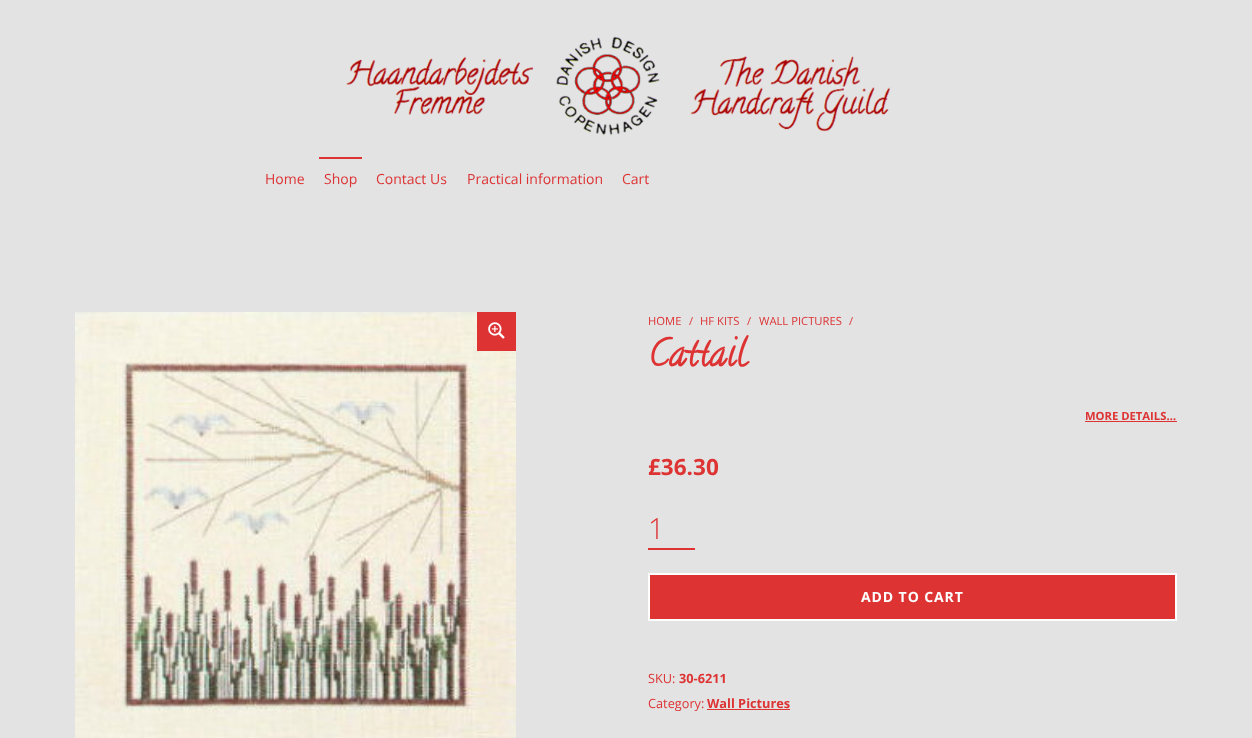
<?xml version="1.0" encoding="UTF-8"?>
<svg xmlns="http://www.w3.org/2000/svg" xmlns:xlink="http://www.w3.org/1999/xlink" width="1252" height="738">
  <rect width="100%" height="100%" fill="#e3e3e4" />
  <image x="346" y="27" width="545" height="109" xlink:href="image1.png" />
  <rect x="319" y="157" width="43" height="2" fill="#dd3333" />
  <image x="75" y="312" width="441" height="426" xlink:href="image2.png" />
  <rect x="477" y="312" width="39" height="39" fill="#dd3333" />
  <image x="488" y="322" width="17" height="17" xlink:href="image3.png" />
  <rect x="1085" y="421" width="92" height="1" fill="#dd3333" />
  <rect x="648" y="548" width="47" height="2" fill="#dd3333" />
  <rect x="649" y="574" width="527" height="46" fill="#dd3333" stroke="#fefeff" stroke-width="2" />
  <rect x="707" y="709" width="83" height="1" fill="#dd3333" />
  <text x="265" y="184" style="font-family: Open Sans; font-size: 14px; fill: #dd3333">Home</text>
  <text x="324" y="184" style="font-family: Open Sans; font-size: 14px; fill: #dd3333">Shop</text>
  <text x="376" y="184" style="font-family: Open Sans; font-size: 14px; fill: #dd3333">Contact Us</text>
  <text x="467" y="184" style="font-family: Open Sans; font-size: 14px; fill: #dd3333">Practical information</text>
  <text x="622" y="184" style="font-family: Open Sans; font-size: 14px; fill: #dd3333">Cart</text>
  <text x="648" y="325" style="font-family: Open Sans; font-size: 11.25px; fill: #dd3333">HOME</text>
  <text x="689" y="325" style="font-family: Open Sans; font-size: 11.25px; fill: #dd3333">/</text>
  <text x="700" y="325" style="font-family: Open Sans; font-size: 11.25px; fill: #dd3333">HF KITS</text>
  <text x="747" y="325" style="font-family: Open Sans; font-size: 11.25px; fill: #dd3333">/</text>
  <text x="759" y="325" style="font-family: Open Sans; font-size: 11.25px; fill: #dd3333">WALL PICTURES</text>
  <text x="849" y="325" style="font-family: Open Sans; font-size: 11.25px; fill: #dd3333">/</text>
  <text x="648" y="365" style="font-family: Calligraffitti; font-size: 37px; font-weight: bold; fill: #dd3333">Cattail</text>
  <text x="1085" y="420" style="font-family: Open Sans; font-size: 11.25px; font-weight: bold; fill: #dd3333">MORE DETAILS…</text>
  <text x="648" y="475" style="font-family: Open Sans; font-size: 22.5px; font-weight: bold; fill: #dd3333">£36.30</text>
  <text x="648" y="539" style="font-family: Open Sans; font-size: 29px; font-weight: 300; fill: #dd3333">1</text>
  <text x="861" y="602" style="font-family: Open Sans; font-size: 14px; font-weight: bold; letter-spacing: 0.9px; fill: #fefeff">ADD TO CART</text>
  <text x="648" y="683" style="font-family: Open Sans; font-size: 12.75px; fill: #dd3333">SKU:</text>
  <text x="679" y="683" style="font-family: Open Sans; font-size: 12.75px; font-weight: bold; fill: #dd3333">30-6211</text>
  <text x="648" y="708" style="font-family: Open Sans; font-size: 12.75px; fill: #dd3333">Category:</text>
  <text x="707" y="708" style="font-family: Open Sans; font-size: 12.75px; font-weight: bold; fill: #dd3333">Wall Pictures</text>
</svg>
